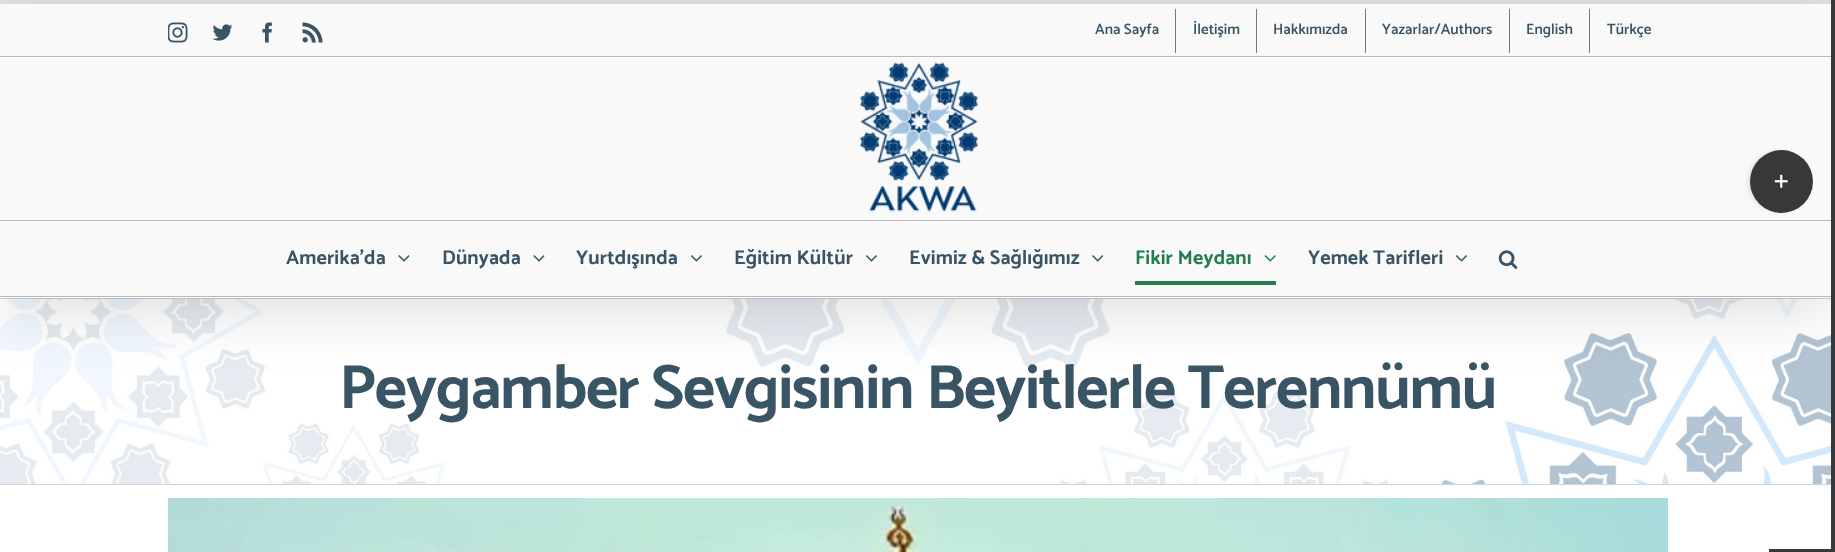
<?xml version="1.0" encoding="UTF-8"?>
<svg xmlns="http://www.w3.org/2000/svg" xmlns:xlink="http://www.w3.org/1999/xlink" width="1835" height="552">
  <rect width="100%" height="100%" fill="#e2e2e2" />
  <rect y="485" width="1831" height="67" fill="#ffffff" />
  <image x="0" y="299" width="1831" height="185" xlink:href="image12.png" />
  <rect y="298" width="1835" height="1" fill="#d2d3d4" />
  <rect x="3" y="19" width="1830" height="289" fill="#000000" fill-opacity="0.14" filter="blur(31px)" />
  <rect y="4" width="1831" height="216" fill="#f9f9f9" />
  <rect y="56" width="1835" height="1" fill="#bababa" />
  <image x="168" y="22" width="20" height="21" xlink:href="image1.png" />
  <image x="212" y="24" width="21" height="17" xlink:href="image2.png" />
  <image x="262" y="22" width="10" height="21" xlink:href="image3.png" />
  <image x="302" y="22" width="21" height="21" xlink:href="image4.png" />
  <rect x="1175" y="9" width="1" height="44" fill="#607d8b" />
  <rect x="1256" y="9" width="1" height="44" fill="#607d8b" />
  <rect x="1365" y="9" width="1" height="44" fill="#607d8b" />
  <rect x="1509" y="9" width="1" height="44" fill="#607d8b" />
  <rect x="1589" y="9" width="1" height="44" fill="#607d8b" />
  <rect y="220" width="1835" height="1" fill="#bababa" />
  <image x="859" y="62" width="119" height="150" xlink:href="image5.png" />
  <rect y="221" width="1831" height="77" fill="#f9f9f9" />
  <rect y="296" width="1835" height="1" fill="#bababa" />
  <image x="398" y="255" width="12" height="7" xlink:href="image6.png" />
  <image x="533" y="255" width="12" height="7" xlink:href="image6.png" />
  <image x="690" y="255" width="12" height="7" xlink:href="image7.png" />
  <image x="865" y="255" width="12" height="7" xlink:href="image7.png" />
  <image x="1092" y="255" width="12" height="7" xlink:href="image8.png" />
  <image x="1264" y="255" width="12" height="7" xlink:href="image9.png" />
  <rect x="1135" y="281" width="141" height="4" fill="#227d51" />
  <image x="1455" y="255" width="12" height="7" xlink:href="image7.png" />
  <image x="1498" y="250" width="20" height="19" xlink:href="image10.png" />
  <rect x="1769" y="549" width="66" height="3" fill="#363839" />
  <rect x="1749" y="153" width="57" height="57" rx="28.5" fill="#000000" fill-opacity="0.14" filter="blur(3px)" />
  <circle cx="1781.5" cy="181.5" r="31.5" fill="#363839" />
  <image x="1774" y="174" width="14" height="14" xlink:href="image11.png" />
  <rect y="484" width="1835" height="1" fill="#d2d3d4" />
  <rect x="1831" width="4" height="549" fill="#363839" />
  <image x="168" y="498" width="1500" height="54" xlink:href="image13.png" />
  <text x="1095" y="34" style="font-family: Catamaran; font-size: 15px; font-weight: 600; fill: #385465">Ana Sayfa</text>
  <text x="1193" y="34" style="font-family: Catamaran; font-size: 15px; font-weight: 600; fill: #385465">İletişim</text>
  <text x="1273" y="34" style="font-family: Catamaran; font-size: 15px; font-weight: 600; fill: #385465">Hakkımızda</text>
  <text x="1382" y="34" style="font-family: Catamaran; font-size: 15px; font-weight: 600; fill: #385465">Yazarlar/Authors</text>
  <text x="1526" y="34" style="font-family: Catamaran; font-size: 15px; font-weight: 600; fill: #385465">English</text>
  <text x="1607" y="34" style="font-family: Catamaran; font-size: 15px; font-weight: 600; fill: #385465">Türkçe</text>
  <text x="286" y="264" style="font-family: Catamaran; font-size: 20px; font-weight: bold; letter-spacing: 0.1px; fill: #385465">Amerika’da</text>
  <text x="442" y="264" style="font-family: Catamaran; font-size: 20px; font-weight: bold; letter-spacing: 0.1px; fill: #385465">Dünyada</text>
  <text x="576" y="264" style="font-family: Catamaran; font-size: 20px; font-weight: bold; letter-spacing: 0.1px; fill: #385465">Yurtdışında</text>
  <text x="734" y="264" style="font-family: Catamaran; font-size: 20px; font-weight: bold; letter-spacing: 0.1px; fill: #385465">Eğitim Kültür</text>
  <text x="909" y="264" style="font-family: Catamaran; font-size: 20px; font-weight: bold; letter-spacing: 0.1px; fill: #385465">Evimiz &amp; Sağlığımız</text>
  <text x="1135" y="264" style="font-family: Catamaran; font-size: 20px; font-weight: bold; letter-spacing: 0.1px; fill: #227d51">Fikir Meydanı</text>
  <text x="1308" y="264" style="font-family: Catamaran; font-size: 20px; font-weight: bold; letter-spacing: 0.1px; fill: #385465">Yemek Tarifleri</text>
  <text x="339" y="408" style="font-family: Catamaran; font-size: 62.5px; font-weight: bold; letter-spacing: -1.25px; fill: #385465">Peygamber Sevgisinin Beyitlerle Terennümü</text>
</svg>
